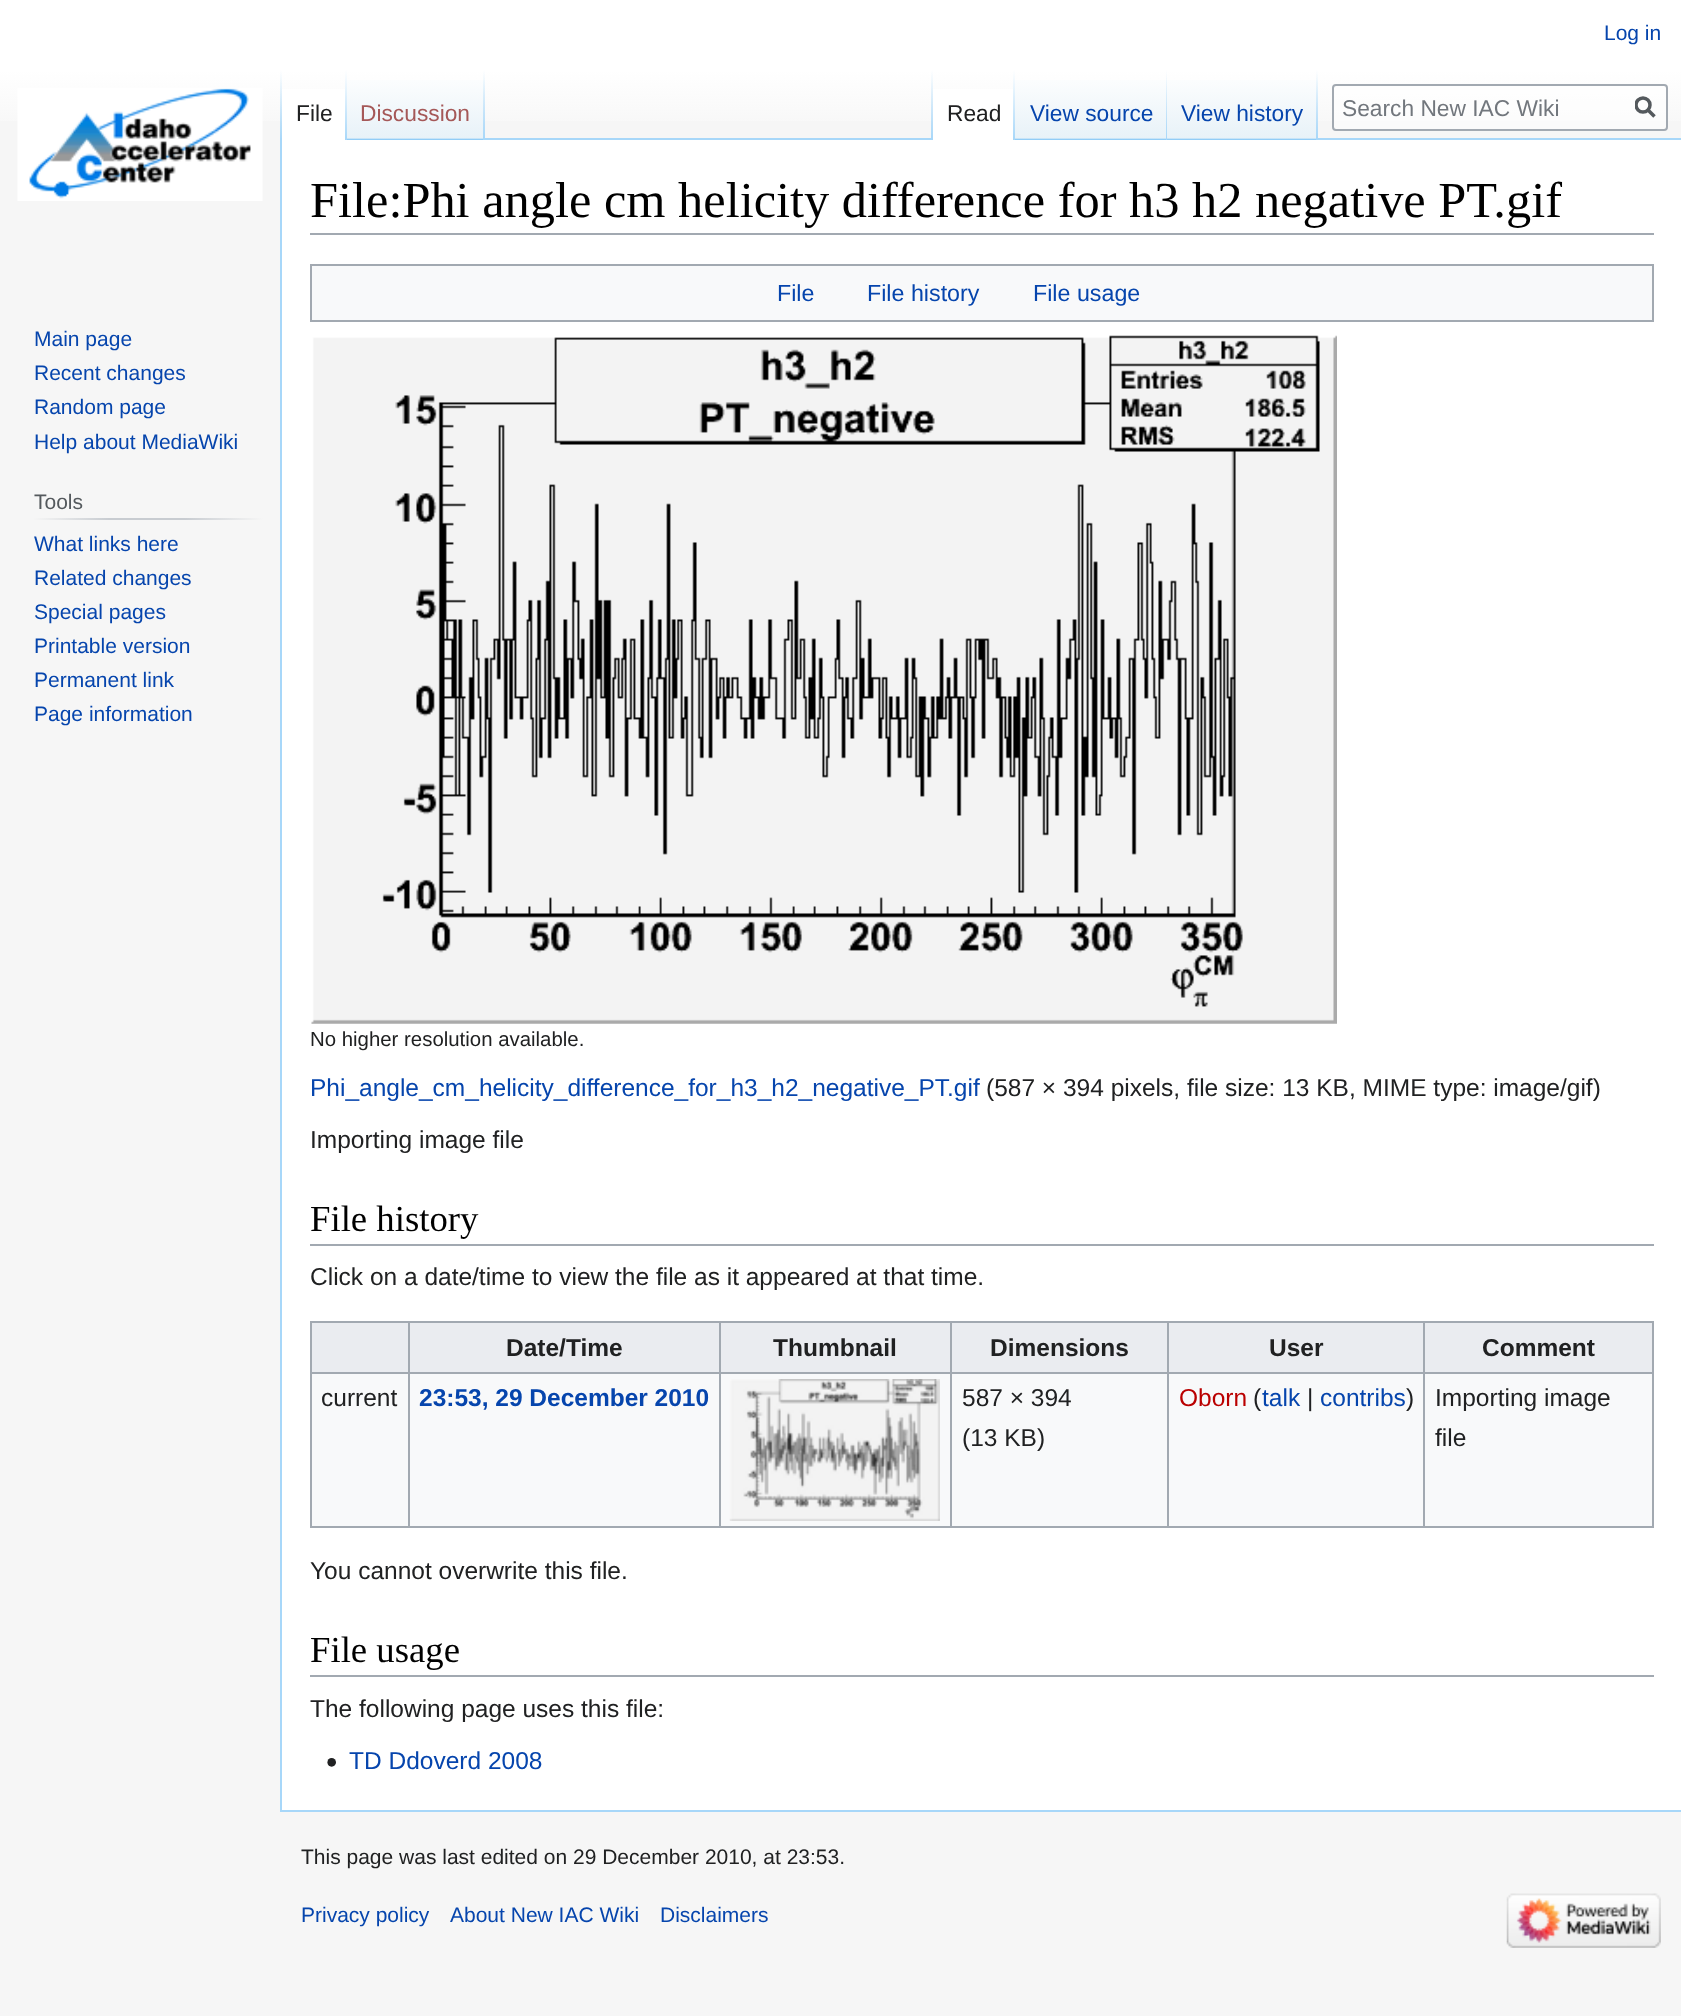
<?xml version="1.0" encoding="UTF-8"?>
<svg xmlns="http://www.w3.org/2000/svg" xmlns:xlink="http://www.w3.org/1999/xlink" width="1681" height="2016">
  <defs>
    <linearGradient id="g1" gradientUnits="userSpaceOnUse" x1="841" y1="0" x2="841" y2="140"><stop offset="0.5" stop-color="#ffffff" /><stop offset="1" stop-color="#f6f6f6" /></linearGradient>
    <linearGradient id="g2" gradientUnits="userSpaceOnUse" x1="281" y1="70" x2="281" y2="140"><stop offset="0" stop-color="#a7d7f9" stop-opacity="0" /><stop offset="1" stop-color="#a7d7f9" /></linearGradient>
    <linearGradient id="g3" gradientUnits="userSpaceOnUse" x1="346" y1="70" x2="346" y2="140"><stop offset="0" stop-color="#ffffff" /><stop offset="1" stop-color="#a7d7f9" /></linearGradient>
    <linearGradient id="g4" gradientUnits="userSpaceOnUse" x1="416" y1="140" x2="416" y2="70"><stop offset="0" stop-color="#77c1f6" /><stop offset="0.03" stop-color="#e8f2f8" /><stop offset="1" stop-color="#ffffff" /></linearGradient>
    <linearGradient id="g5" gradientUnits="userSpaceOnUse" x1="484" y1="70" x2="484" y2="140"><stop offset="0" stop-color="#a7d7f9" stop-opacity="0" /><stop offset="1" stop-color="#a7d7f9" /></linearGradient>
    <linearGradient id="g6" gradientUnits="userSpaceOnUse" x1="932" y1="70" x2="932" y2="140"><stop offset="0" stop-color="#a7d7f9" stop-opacity="0" /><stop offset="1" stop-color="#a7d7f9" /></linearGradient>
    <linearGradient id="g7" gradientUnits="userSpaceOnUse" x1="1014" y1="70" x2="1014" y2="140"><stop offset="0" stop-color="#ffffff" /><stop offset="1" stop-color="#a7d7f9" /></linearGradient>
    <linearGradient id="g8" gradientUnits="userSpaceOnUse" x1="1091" y1="140" x2="1091" y2="70"><stop offset="0" stop-color="#77c1f6" /><stop offset="0.03" stop-color="#e8f2f8" /><stop offset="1" stop-color="#ffffff" /></linearGradient>
    <linearGradient id="g9" gradientUnits="userSpaceOnUse" x1="1166" y1="70" x2="1166" y2="140"><stop offset="0" stop-color="#a7d7f9" stop-opacity="0" /><stop offset="1" stop-color="#a7d7f9" /></linearGradient>
    <linearGradient id="g10" gradientUnits="userSpaceOnUse" x1="1243" y1="140" x2="1243" y2="70"><stop offset="0" stop-color="#77c1f6" /><stop offset="0.03" stop-color="#e8f2f8" /><stop offset="1" stop-color="#ffffff" /></linearGradient>
    <linearGradient id="g11" gradientUnits="userSpaceOnUse" x1="1317" y1="70" x2="1317" y2="140"><stop offset="0" stop-color="#a7d7f9" stop-opacity="0" /><stop offset="1" stop-color="#a7d7f9" /></linearGradient>
    <clipPath id="clip1"><rect x="1635" y="96" width="21" height="23" /></clipPath>
    <linearGradient id="g12" gradientUnits="userSpaceOnUse" x1="33" y1="519" x2="263" y2="519"><stop offset="0" stop-color="#f6f6f6" /><stop offset="0.33" stop-color="#c8ccd1" /><stop offset="0.66" stop-color="#c8ccd1" /><stop offset="1" stop-color="#f6f6f6" /></linearGradient>
  </defs>
  <rect width="100%" height="100%" fill="#f6f6f6" />
  <rect width="1681" height="121" fill="url(#g1)" />
  <rect x="280" y="1810" width="1401" height="2" fill="#a7d7f9" />
  <rect x="280" y="138" width="2" height="1673" fill="#a7d7f9" />
  <rect x="280" y="70" width="2" height="70" fill="url(#g2)" />
  <rect x="282" y="89" width="63" height="51" fill="#ffffff" />
  <rect x="345" y="70" width="2" height="70" fill="url(#g3)" />
  <rect x="347" y="80" width="138" height="60" fill="url(#g4)" />
  <rect x="483" y="70" width="2" height="70" fill="url(#g5)" />
  <rect x="485" y="138" width="1196" height="2" fill="#a7d7f9" />
  <rect x="931" y="70" width="2" height="70" fill="url(#g6)" />
  <rect x="933" y="89" width="80" height="51" fill="#ffffff" />
  <rect x="1013" y="70" width="2" height="70" fill="url(#g7)" />
  <rect x="1015" y="80" width="152" height="60" fill="url(#g8)" />
  <rect x="1166" y="70" width="1" height="70" fill="url(#g9)" />
  <rect x="1167" y="80" width="151" height="60" fill="url(#g10)" />
  <rect x="1316" y="70" width="2" height="70" fill="url(#g11)" />
  <rect x="1333" y="85" width="334" height="45" rx="3" fill="#ffffff" fill-opacity="0.5" stroke="#a2a9b1" stroke-width="2" />
  <path d="M 1654.5 116.5 l -7 -7" fill="none" stroke="#54595d" stroke-width="3.5" />
  <g clip-path="url(#clip1)">
    <circle cx="1643" cy="105" r="7" fill="none" stroke="#54595d" stroke-width="3.5" />
  </g>
  <image x="17" y="88" width="246" height="113" xlink:href="image1.png" />
  <rect x="33" y="518" width="230" height="2" fill="url(#g12)" />
  <rect x="282" y="140" width="1399" height="1670" fill="#ffffff" />
  <rect x="310" y="233" width="1344" height="2" fill="#a2a9b1" />
  <rect x="311" y="265" width="1342" height="56" fill="#f8f9fa" stroke="#a2a9b1" stroke-width="2" />
  <image x="311" y="335" width="1026" height="689" xlink:href="image2.png" />
  <rect x="310" y="1244" width="1344" height="2" fill="#a2a9b1" />
  <rect x="312" y="1374" width="1340" height="152" fill="#f8f9fa" />
  <rect x="310" y="1321" width="1344" height="2" fill="#a2a9b1" />
  <rect x="1652" y="1321" width="2" height="207" fill="#a2a9b1" />
  <rect x="310" y="1526" width="1344" height="2" fill="#a2a9b1" />
  <rect x="310" y="1321" width="2" height="207" fill="#a2a9b1" />
  <rect x="312" y="1323" width="96" height="49" fill="#eaecf0" />
  <rect x="410" y="1323" width="309" height="49" fill="#eaecf0" />
  <rect x="1423" y="1372" width="231" height="2" fill="#a2a9b1" />
  <rect x="1423" y="1372" width="2" height="156" fill="#a2a9b1" />
  <rect x="1167" y="1372" width="258" height="2" fill="#a2a9b1" />
  <rect x="1167" y="1372" width="2" height="156" fill="#a2a9b1" />
  <rect x="950" y="1372" width="219" height="2" fill="#a2a9b1" />
  <rect x="950" y="1372" width="2" height="156" fill="#a2a9b1" />
  <rect x="719" y="1372" width="233" height="2" fill="#a2a9b1" />
  <rect x="719" y="1372" width="2" height="156" fill="#a2a9b1" />
  <rect x="408" y="1372" width="313" height="2" fill="#a2a9b1" />
  <rect x="408" y="1372" width="2" height="156" fill="#a2a9b1" />
  <rect x="310" y="1372" width="100" height="2" fill="#a2a9b1" />
  <rect x="408" y="1321" width="2" height="53" fill="#a2a9b1" />
  <rect x="721" y="1323" width="229" height="49" fill="#eaecf0" />
  <rect x="719" y="1321" width="2" height="53" fill="#a2a9b1" />
  <rect x="952" y="1323" width="215" height="49" fill="#eaecf0" />
  <rect x="950" y="1321" width="2" height="53" fill="#a2a9b1" />
  <rect x="1169" y="1323" width="254" height="49" fill="#eaecf0" />
  <rect x="1167" y="1321" width="2" height="53" fill="#a2a9b1" />
  <rect x="1425" y="1323" width="227" height="49" fill="#eaecf0" />
  <rect x="1423" y="1321" width="2" height="53" fill="#a2a9b1" />
  <image x="729" y="1379" width="211" height="142" xlink:href="image3.png" />
  <image x="730" y="1379" width="210" height="142" xlink:href="image4.png" />
  <rect x="310" y="1675" width="1344" height="2" fill="#a2a9b1" />
  <image x="327" y="1758" width="9" height="9" xlink:href="image5.png" />
  <image x="1506" y="1893" width="155" height="55" xlink:href="image6.png" />
  <text x="1604" y="40" style="font-family: Liberation Sans; font-size: 21px; fill: #0645ad">Log in</text>
  <text x="296" y="121" style="font-family: Liberation Sans; font-size: 22.75px; fill: #202122">File</text>
  <text x="360" y="121" style="font-family: Liberation Sans; font-size: 22.75px; fill: #a55858">Discussion</text>
  <text x="947" y="121" style="font-family: Liberation Sans; font-size: 22.75px; fill: #202122">Read</text>
  <text x="1030" y="121" style="font-family: Liberation Sans; font-size: 22.75px; fill: #0645ad">View source</text>
  <text x="1181" y="121" style="font-family: Liberation Sans; font-size: 22.75px; fill: #0645ad">View history</text>
  <text x="1342" y="116" style="font-family: Liberation Sans; font-size: 22.75px; fill: #72777d">Search New IAC Wiki</text>
  <text x="34" y="346" style="font-family: Liberation Sans; font-size: 21px; fill: #0645ad">Main page</text>
  <text x="34" y="380" style="font-family: Liberation Sans; font-size: 21px; fill: #0645ad">Recent changes</text>
  <text x="34" y="414" style="font-family: Liberation Sans; font-size: 21px; fill: #0645ad">Random page</text>
  <text x="34" y="449" style="font-family: Liberation Sans; font-size: 21px; fill: #0645ad">Help about MediaWiki</text>
  <text x="34" y="509" style="font-family: Liberation Sans; font-size: 21px; fill: #54595d">Tools</text>
  <text x="34" y="551" style="font-family: Liberation Sans; font-size: 21px; fill: #0645ad">What links here</text>
  <text x="34" y="585" style="font-family: Liberation Sans; font-size: 21px; fill: #0645ad">Related changes</text>
  <text x="34" y="619" style="font-family: Liberation Sans; font-size: 21px; fill: #0645ad">Special pages</text>
  <text x="34" y="653" style="font-family: Liberation Sans; font-size: 21px; fill: #0645ad">Printable version</text>
  <text x="34" y="687" style="font-family: Liberation Sans; font-size: 21px; fill: #0645ad">Permanent link</text>
  <text x="34" y="721" style="font-family: Liberation Sans; font-size: 21px; fill: #0645ad">Page information</text>
  <text x="310" y="217" style="font-family: Liberation Serif; font-size: 50.4px; fill: #000000">File:Phi angle cm helicity difference for h3 h2 negative PT.gif</text>
  <text x="777" y="301" style="font-family: Liberation Sans; font-size: 23.25px; fill: #0645ad">File</text>
  <text x="867" y="301" style="font-family: Liberation Sans; font-size: 23.25px; fill: #0645ad">File history</text>
  <text x="1033" y="301" style="font-family: Liberation Sans; font-size: 23.25px; fill: #0645ad">File usage</text>
  <text x="310" y="1046" style="font-family: Liberation Sans; font-size: 20.4px; fill: #202122">No higher resolution available.</text>
  <text x="310" y="1096" style="font-family: Liberation Sans; font-size: 24.5px; fill: #0645ad">Phi_angle_cm_helicity_difference_for_h3_h2_negative_PT.gif</text>
  <text x="986" y="1096" style="font-family: Liberation Sans; font-size: 24.5px; fill: #202122">(587 × 394 pixels, file size: 13 KB, MIME type: image/gif)</text>
  <text x="310" y="1148" style="font-family: Liberation Sans; font-size: 24.5px; fill: #202122">Importing image file</text>
  <text x="310" y="1231" style="font-family: Liberation Serif; font-size: 36.75px; fill: #000000">File history</text>
  <text x="310" y="1285" style="font-family: Liberation Sans; font-size: 24.5px; fill: #202122">Click on a date/time to view the file as it appeared at that time.</text>
  <text x="506" y="1356" style="font-family: Liberation Sans; font-size: 24.5px; font-weight: bold; fill: #202122">Date/Time</text>
  <text x="773" y="1356" style="font-family: Liberation Sans; font-size: 24.5px; font-weight: bold; fill: #202122">Thumbnail</text>
  <text x="990" y="1356" style="font-family: Liberation Sans; font-size: 24.5px; font-weight: bold; fill: #202122">Dimensions</text>
  <text x="1269" y="1356" style="font-family: Liberation Sans; font-size: 24.5px; font-weight: bold; fill: #202122">User</text>
  <text x="1482" y="1356" style="font-family: Liberation Sans; font-size: 24.5px; font-weight: bold; fill: #202122">Comment</text>
  <text x="321" y="1406" style="font-family: Liberation Sans; font-size: 24.5px; fill: #202122">current</text>
  <text x="419" y="1406" style="font-family: Liberation Sans; font-size: 24.5px; font-weight: bold; fill: #0645ad">23:53, 29 December 2010</text>
  <text x="962" y="1406" style="font-family: Liberation Sans; font-size: 24.5px; fill: #202122">587 × 394</text>
  <text x="962" y="1446" style="font-family: Liberation Sans; font-size: 24.5px; fill: #202122">(13 KB)</text>
  <text x="1179" y="1406" style="font-family: Liberation Sans; font-size: 24.5px; fill: #ba0000">Oborn</text>
  <text x="1253" y="1406" style="font-family: Liberation Sans; font-size: 24.5px; fill: #202122">(</text>
  <text x="1262" y="1406" style="font-family: Liberation Sans; font-size: 24.5px; fill: #0645ad">talk</text>
  <text x="1307" y="1406" style="font-family: Liberation Sans; font-size: 24.5px; fill: #202122">|</text>
  <text x="1320" y="1406" style="font-family: Liberation Sans; font-size: 24.5px; fill: #0645ad">contribs</text>
  <text x="1406" y="1406" style="font-family: Liberation Sans; font-size: 24.5px; fill: #202122">)</text>
  <text x="1435" y="1406" style="font-family: Liberation Sans; font-size: 24.5px; fill: #202122">Importing image</text>
  <text x="1435" y="1446" style="font-family: Liberation Sans; font-size: 24.5px; fill: #202122">file</text>
  <text x="310" y="1579" style="font-family: Liberation Sans; font-size: 24.5px; fill: #202122">You cannot overwrite this file.</text>
  <text x="310" y="1662" style="font-family: Liberation Serif; font-size: 36.75px; fill: #000000">File usage</text>
  <text x="310" y="1717" style="font-family: Liberation Sans; font-size: 24.5px; fill: #202122">The following page uses this file:</text>
  <text x="349" y="1769" style="font-family: Liberation Sans; font-size: 24.5px; fill: #0645ad">TD Ddoverd 2008</text>
  <text x="301" y="1864" style="font-family: Liberation Sans; font-size: 21px; fill: #202122">This page was last edited on 29 December 2010, at 23:53.</text>
  <text x="301" y="1922" style="font-family: Liberation Sans; font-size: 21px; fill: #0645ad">Privacy policy</text>
  <text x="450" y="1922" style="font-family: Liberation Sans; font-size: 21px; fill: #0645ad">About New IAC Wiki</text>
  <text x="660" y="1922" style="font-family: Liberation Sans; font-size: 21px; fill: #0645ad">Disclaimers</text>
</svg>
